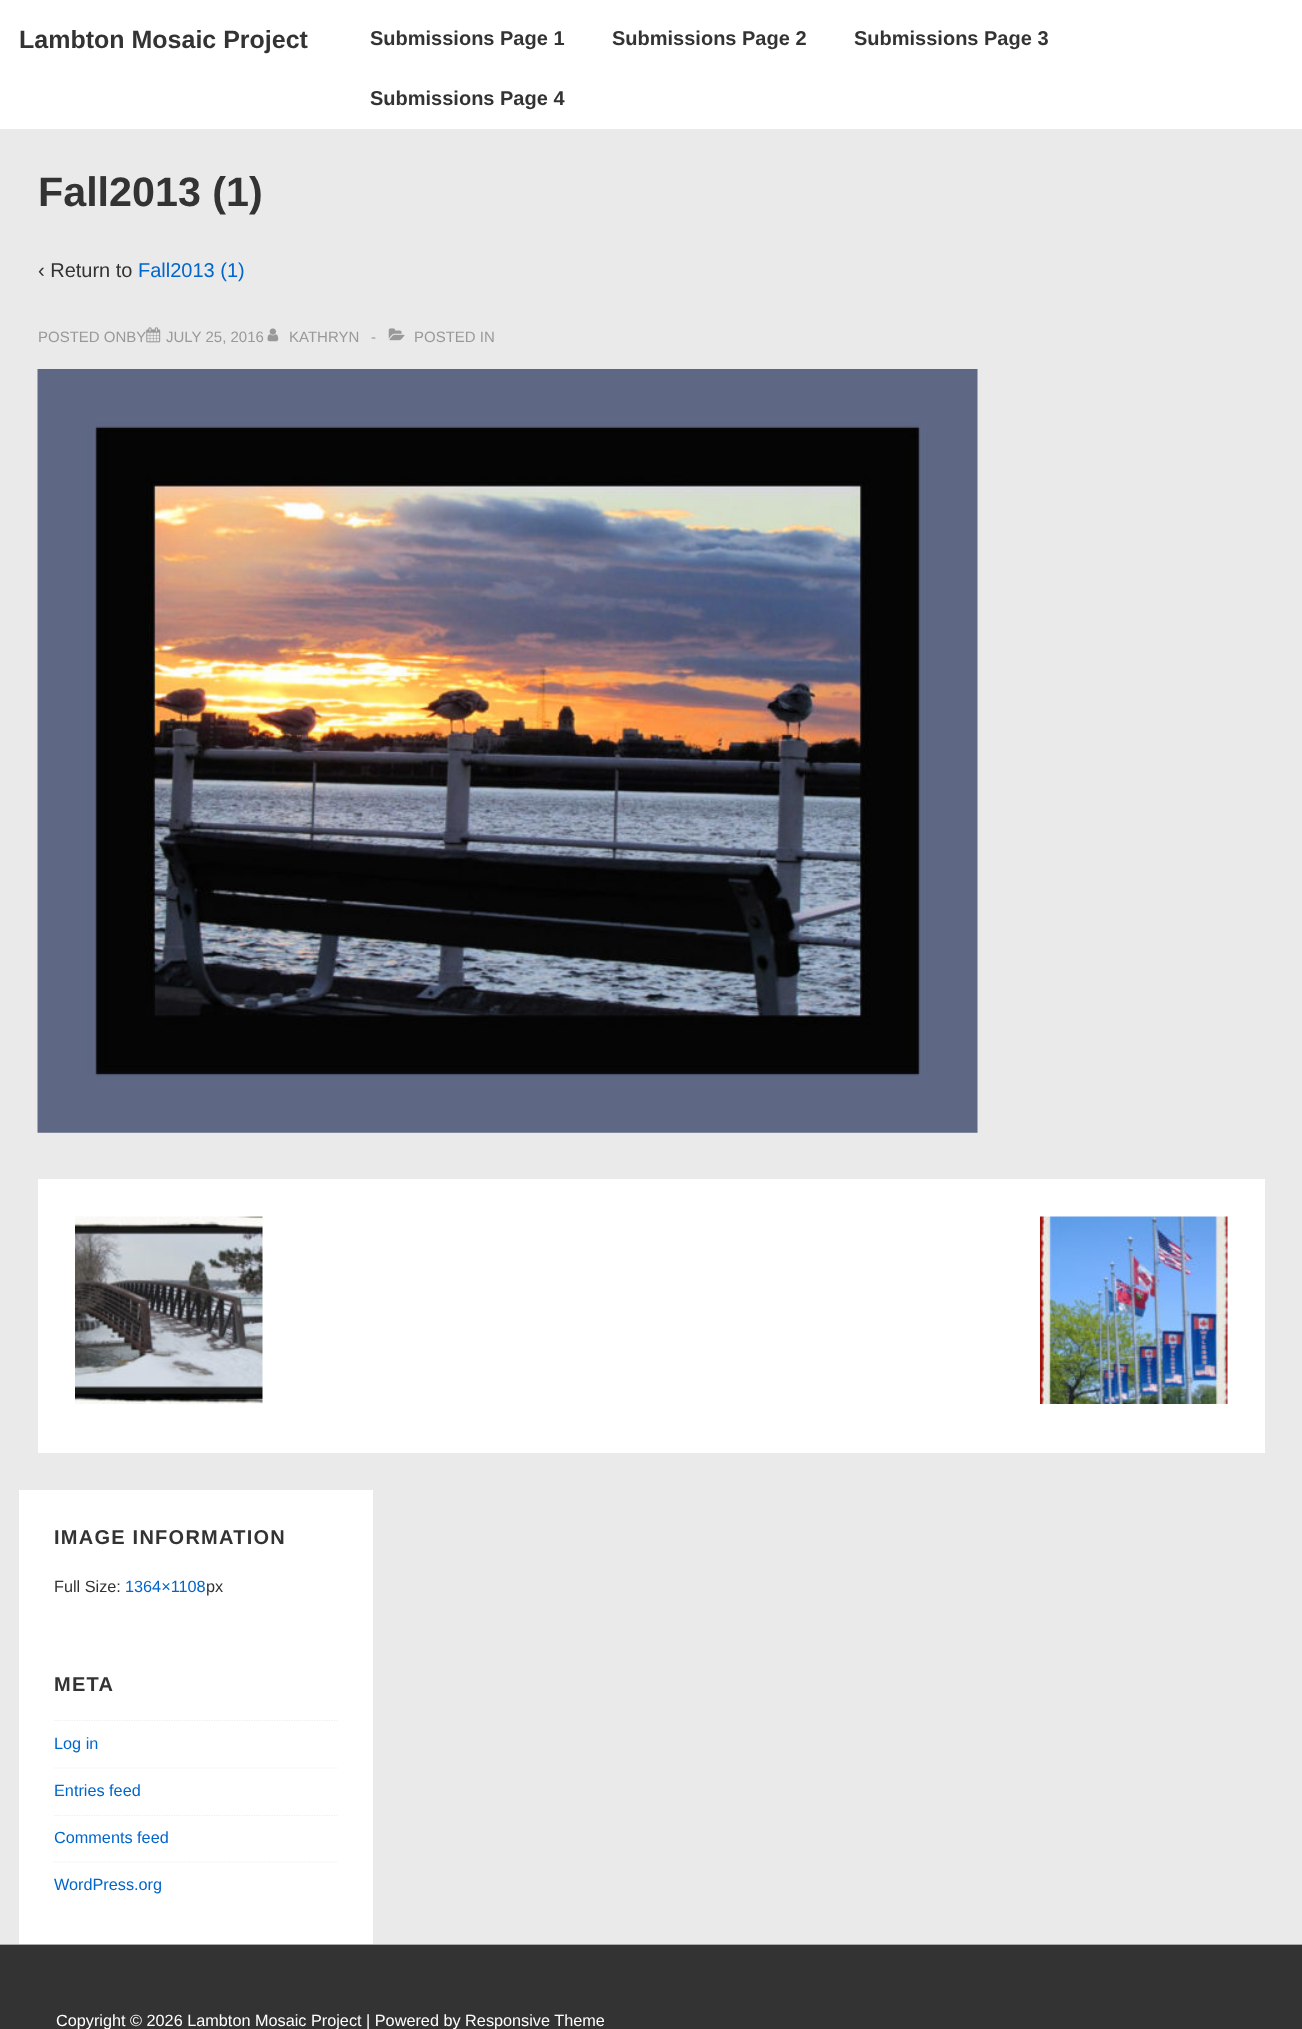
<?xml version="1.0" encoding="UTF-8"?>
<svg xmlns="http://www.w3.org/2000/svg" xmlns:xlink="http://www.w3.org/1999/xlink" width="1302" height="2029">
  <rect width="100%" height="100%" fill="#eaeaea" />
  <rect width="1302" height="129" fill="#ffffff" />
  <image x="146" y="327" width="15" height="16" xlink:href="image1.png" />
  <image x="267" y="328" width="12" height="14" xlink:href="image2.png" />
  <image x="388" y="328" width="17" height="13" xlink:href="image3.png" />
  <image x="37" y="369" width="941" height="764" xlink:href="image4.png" />
  <rect x="38" y="1179" width="1227" height="274" fill="#ffffff" />
  <image x="75" y="1216" width="188" height="188" xlink:href="image5.png" />
  <image x="1040" y="1216" width="188" height="188" xlink:href="image6.png" />
  <rect x="19" y="1490" width="354" height="454" fill="#ffffff" />
  <path d="M 54 1720.5 h 283.5" fill="none" stroke="#eeeeee" stroke-width="1.2" stroke-dasharray="1.25 1.25" />
  <path d="M 54 1768 h 283.5" fill="none" stroke="#eeeeee" stroke-width="1.2" stroke-dasharray="1.25 1.25" />
  <path d="M 54 1815.5 h 283.5" fill="none" stroke="#eeeeee" stroke-width="1.2" stroke-dasharray="1.25 1.25" />
  <path d="M 54 1862 h 283.5" fill="none" stroke="#eeeeee" stroke-width="1.2" stroke-dasharray="1.25 1.25" />
  <rect y="1945" width="1302" height="84" fill="#333333" />
  <rect y="1944" width="1302" height="1" fill="#aaaaaa" />
  <text x="19" y="48" style="font-family: Liberation Sans; font-size: 25px; font-weight: bold; fill: #333333">Lambton Mosaic Project</text>
  <text x="370" y="45" style="font-family: Liberation Sans; font-size: 20px; font-weight: bold; fill: #333333">Submissions Page 1</text>
  <text x="612" y="45" style="font-family: Liberation Sans; font-size: 20px; font-weight: bold; fill: #333333">Submissions Page 2</text>
  <text x="854" y="45" style="font-family: Liberation Sans; font-size: 20px; font-weight: bold; fill: #333333">Submissions Page 3</text>
  <text x="370" y="105" style="font-family: Liberation Sans; font-size: 20px; font-weight: bold; fill: #333333">Submissions Page 4</text>
  <text x="38" y="206" style="font-family: Liberation Sans; font-size: 41.25px; font-weight: bold; fill: #333333">Fall2013 (1)</text>
  <text x="38" y="277" style="font-family: Liberation Sans; font-size: 20px; fill: #333333">‹ Return to</text>
  <text x="138" y="277" style="font-family: Liberation Sans; font-size: 20px; fill: #0066cc">Fall2013 (1)</text>
  <text x="38" y="342" style="font-family: Liberation Sans; font-size: 15px; fill: #999999">POSTED ONBY</text>
  <text x="166" y="342" style="font-family: Liberation Sans; font-size: 15px; fill: #999999">JULY 25, 2016</text>
  <text x="289" y="342" style="font-family: Liberation Sans; font-size: 15px; fill: #999999">KATHRYN</text>
  <text x="371" y="342" style="font-family: Liberation Sans; font-size: 15px; fill: #999999">-</text>
  <text x="414" y="342" style="font-family: Liberation Sans; font-size: 15px; fill: #999999">POSTED IN</text>
  <text x="54" y="1544" style="font-family: Liberation Sans; font-size: 20px; font-weight: bold; letter-spacing: 1.25px; fill: #333333">IMAGE INFORMATION</text>
  <text x="54" y="1592" style="font-family: Liberation Sans; font-size: 16.25px; fill: #333333">Full Size:</text>
  <text x="125" y="1592" style="font-family: Liberation Sans; font-size: 16.25px; fill: #0066cc">1364×1108</text>
  <text x="206" y="1592" style="font-family: Liberation Sans; font-size: 16.25px; fill: #333333">px</text>
  <text x="54" y="1691" style="font-family: Liberation Sans; font-size: 20px; font-weight: bold; letter-spacing: 1.25px; fill: #333333">META</text>
  <text x="54" y="1749" style="font-family: Liberation Sans; font-size: 16.25px; fill: #0066cc">Log in</text>
  <text x="54" y="1796" style="font-family: Liberation Sans; font-size: 16.25px; fill: #0066cc">Entries feed</text>
  <text x="54" y="1843" style="font-family: Liberation Sans; font-size: 16.25px; fill: #0066cc">Comments feed</text>
  <text x="54" y="1890" style="font-family: Liberation Sans; font-size: 16.25px; fill: #0066cc">WordPress.org</text>
  <text x="56" y="2026" style="font-family: Liberation Sans; font-size: 16.25px; fill: #ffffff">Copyright © 2026 Lambton Mosaic Project | Powered by Responsive Theme</text>
</svg>
